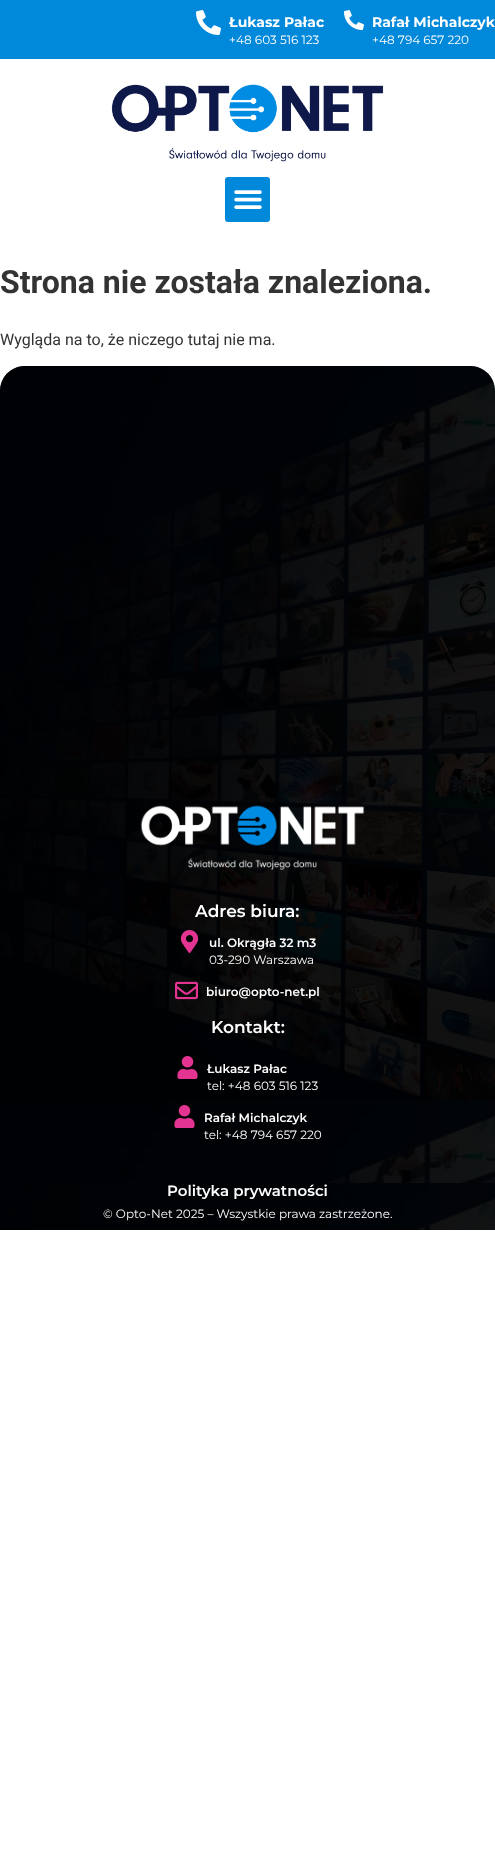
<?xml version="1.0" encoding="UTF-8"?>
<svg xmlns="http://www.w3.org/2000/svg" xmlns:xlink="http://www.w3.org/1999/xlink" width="495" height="1864">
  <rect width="100%" height="100%" fill="#ffffff" />
  <rect width="495" height="59" fill="#0088db" />
  <image x="196" y="10" width="25" height="25" xlink:href="image1.png" />
  <image x="344" y="10" width="20" height="20" xlink:href="image2.png" />
  <image x="111" y="84" width="273" height="78" xlink:href="image3.png" />
  <rect x="225" y="177" width="45" height="45" rx="3" fill="#0088db" />
  <image x="234" y="190" width="28" height="19" xlink:href="image4.png" />
  <image x="0" y="366" width="495" height="817" xlink:href="image5.png" />
  <path d="M 25 366 h 445 c 14 0 25 11 25 25 v 792 h -495 v -792 c 0 -14 11 -25 25 -25 z" fill="#000000" fill-opacity="0.9" />
  <image x="140" y="805" width="225" height="65" xlink:href="image6.png" />
  <image x="180" y="930" width="19" height="23" xlink:href="image7.png" />
  <image x="175" y="981" width="23" height="19" xlink:href="image8.png" />
  <image x="177" y="1056" width="21" height="23" xlink:href="image9.png" />
  <image x="174" y="1105" width="21" height="23" xlink:href="image10.png" />
  <image x="0" y="1183" width="495" height="47" xlink:href="image11.png" />
  <text x="229" y="27" style="font-family: Montserrat; font-size: 14px; font-weight: bold; fill: #ffffff">Łukasz Pałac</text>
  <text x="229" y="44" style="font-family: Montserrat; font-size: 12px; fill: #ffffff">+48 603 516 123</text>
  <text x="372" y="27" style="font-family: Montserrat; font-size: 14px; font-weight: bold; fill: #ffffff">Rafał Michalczyk</text>
  <text x="372" y="44" style="font-family: Montserrat; font-size: 12px; fill: #ffffff">+48 794 657 220</text>
  <text x="0" y="293" style="font-family: Roboto; font-size: 32px; font-weight: bold; fill: #333333">Strona nie została znaleziona.</text>
  <text x="0" y="345" style="font-family: Roboto; font-size: 16px; fill: #333333">Wygląda na to, że niczego tutaj nie ma.</text>
  <text x="195" y="917" style="font-family: Montserrat; font-size: 17px; font-weight: 600; fill: #ffffff">Adres biura:</text>
  <text x="209" y="947" style="font-family: Montserrat; font-size: 12px; font-weight: 600; fill: #ffffff">ul. Okrągła 32 m3</text>
  <text x="209" y="964" style="font-family: Montserrat; font-size: 12px; fill: #ffffff">03-290 Warszawa</text>
  <text x="206" y="996" style="font-family: Montserrat; font-size: 12px; font-weight: 600; fill: #ffffff">biuro@opto-net.pl</text>
  <text x="211" y="1033" style="font-family: Montserrat; font-size: 17px; font-weight: 600; fill: #ffffff">Kontakt:</text>
  <text x="207" y="1073" style="font-family: Montserrat; font-size: 12px; font-weight: 600; fill: #ffffff">Łukasz Pałac</text>
  <text x="207" y="1090" style="font-family: Montserrat; font-size: 12px; fill: #ffffff">tel: +48 603 516 123</text>
  <text x="204" y="1122" style="font-family: Montserrat; font-size: 12px; font-weight: 600; fill: #ffffff">Rafał Michalczyk</text>
  <text x="204" y="1139" style="font-family: Montserrat; font-size: 12px; fill: #ffffff">tel: +48 794 657 220</text>
  <text x="167" y="1196" style="font-family: Montserrat; font-size: 15px; font-weight: 600; fill: #ffffff">Polityka prywatności</text>
  <text x="103" y="1218" style="font-family: Montserrat; font-size: 12px; fill: #ffffff">© Opto-Net 2025 – Wszystkie prawa zastrzeżone.</text>
</svg>
